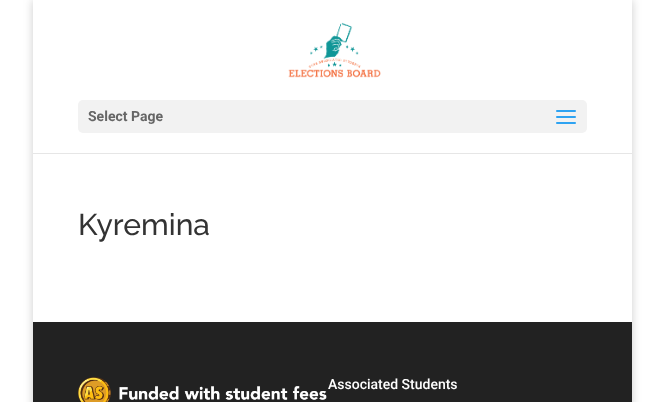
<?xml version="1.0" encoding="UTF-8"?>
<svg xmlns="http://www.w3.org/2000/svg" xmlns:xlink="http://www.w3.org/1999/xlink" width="665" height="402">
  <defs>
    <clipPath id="clip1"><path d="M 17 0 h 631 v 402 h -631 z m 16 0 h 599 v 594 h -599 z" clip-rule="evenodd" /></clipPath>
  </defs>
  <rect width="100%" height="100%" fill="#ffffff" />
  <g clip-path="url(#clip1)">
    <rect x="33" width="599" height="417" fill="#000000" fill-opacity="0.2" filter="blur(5px)" />
  </g>
  <rect x="33" y="153" width="599" height="1" fill="#e6e6e6" />
  <image x="288" y="22" width="93" height="56" xlink:href="image1.png" />
  <rect x="78" y="100" width="509" height="33" rx="5" fill="#f2f2f2" />
  <image x="556" y="110" width="20" height="14" xlink:href="image2.png" />
  <rect x="33" y="322" width="599" height="80" fill="#222222" />
  <image x="78" y="377" width="249" height="25" xlink:href="image3.png" />
  <text x="88" y="121" style="font-family: Roboto; font-size: 14px; font-weight: bold; fill: #666666">Select Page</text>
  <text x="78" y="235" style="font-family: Raleway; font-size: 30px; font-weight: 500; fill: #333333">Kyremina</text>
  <text x="328" y="389" style="font-family: Roboto; font-size: 14px; font-weight: 500; fill: #ffffff">Associated Students</text>
</svg>
